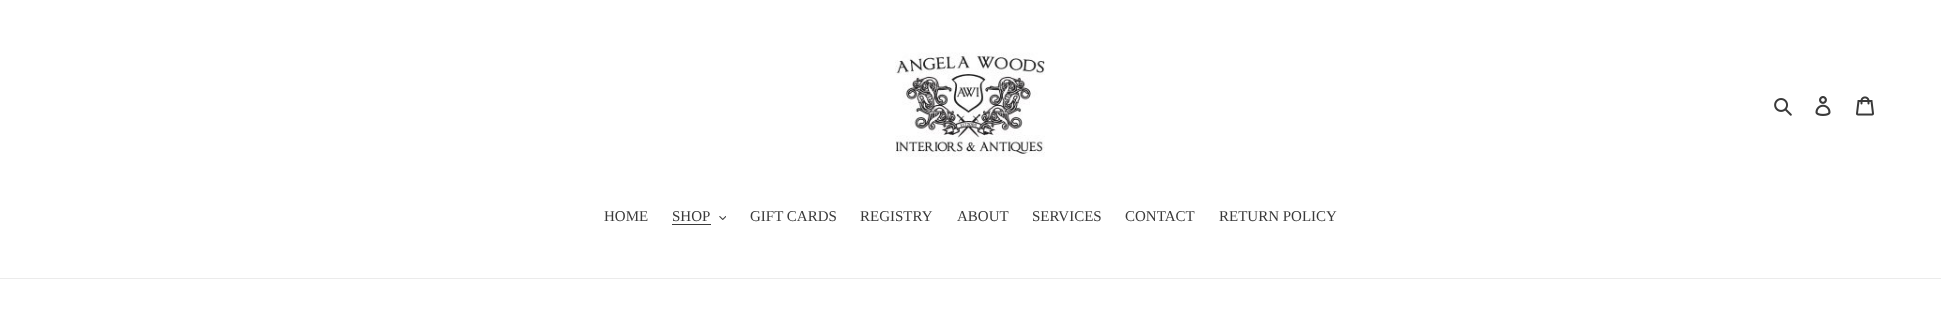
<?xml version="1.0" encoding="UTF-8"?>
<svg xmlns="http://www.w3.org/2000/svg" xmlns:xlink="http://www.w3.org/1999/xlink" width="1941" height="324">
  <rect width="100%" height="100%" fill="#ffffff" />
  <image x="895" y="52" width="150" height="105" xlink:href="image1.png" />
  <image x="1774" y="98" width="18" height="18" xlink:href="image2.png" />
  <image x="1815" y="96" width="16" height="20" xlink:href="image3.png" />
  <image x="1856" y="96" width="18" height="20" xlink:href="image4.png" />
  <rect y="278" width="1941" height="1" fill="#ebebeb" />
  <rect x="672" y="224" width="39" height="1" fill="#3a3a3a" />
  <image x="719" y="216" width="7" height="4" xlink:href="image5.png" />
  <text x="604" y="221" style="font-family: Liberation Serif; font-size: 15px; fill: #3a3a3a">HOME</text>
  <text x="672" y="221" style="font-family: Liberation Serif; font-size: 15px; fill: #3a3a3a">SHOP</text>
  <text x="750" y="221" style="font-family: Liberation Serif; font-size: 15px; fill: #3a3a3a">GIFT CARDS</text>
  <text x="860" y="221" style="font-family: Liberation Serif; font-size: 15px; fill: #3a3a3a">REGISTRY</text>
  <text x="957" y="221" style="font-family: Liberation Serif; font-size: 15px; fill: #3a3a3a">ABOUT</text>
  <text x="1032" y="221" style="font-family: Liberation Serif; font-size: 15px; fill: #3a3a3a">SERVICES</text>
  <text x="1125" y="221" style="font-family: Liberation Serif; font-size: 15px; fill: #3a3a3a">CONTACT</text>
  <text x="1219" y="221" style="font-family: Liberation Serif; font-size: 15px; fill: #3a3a3a">RETURN POLICY</text>
</svg>
